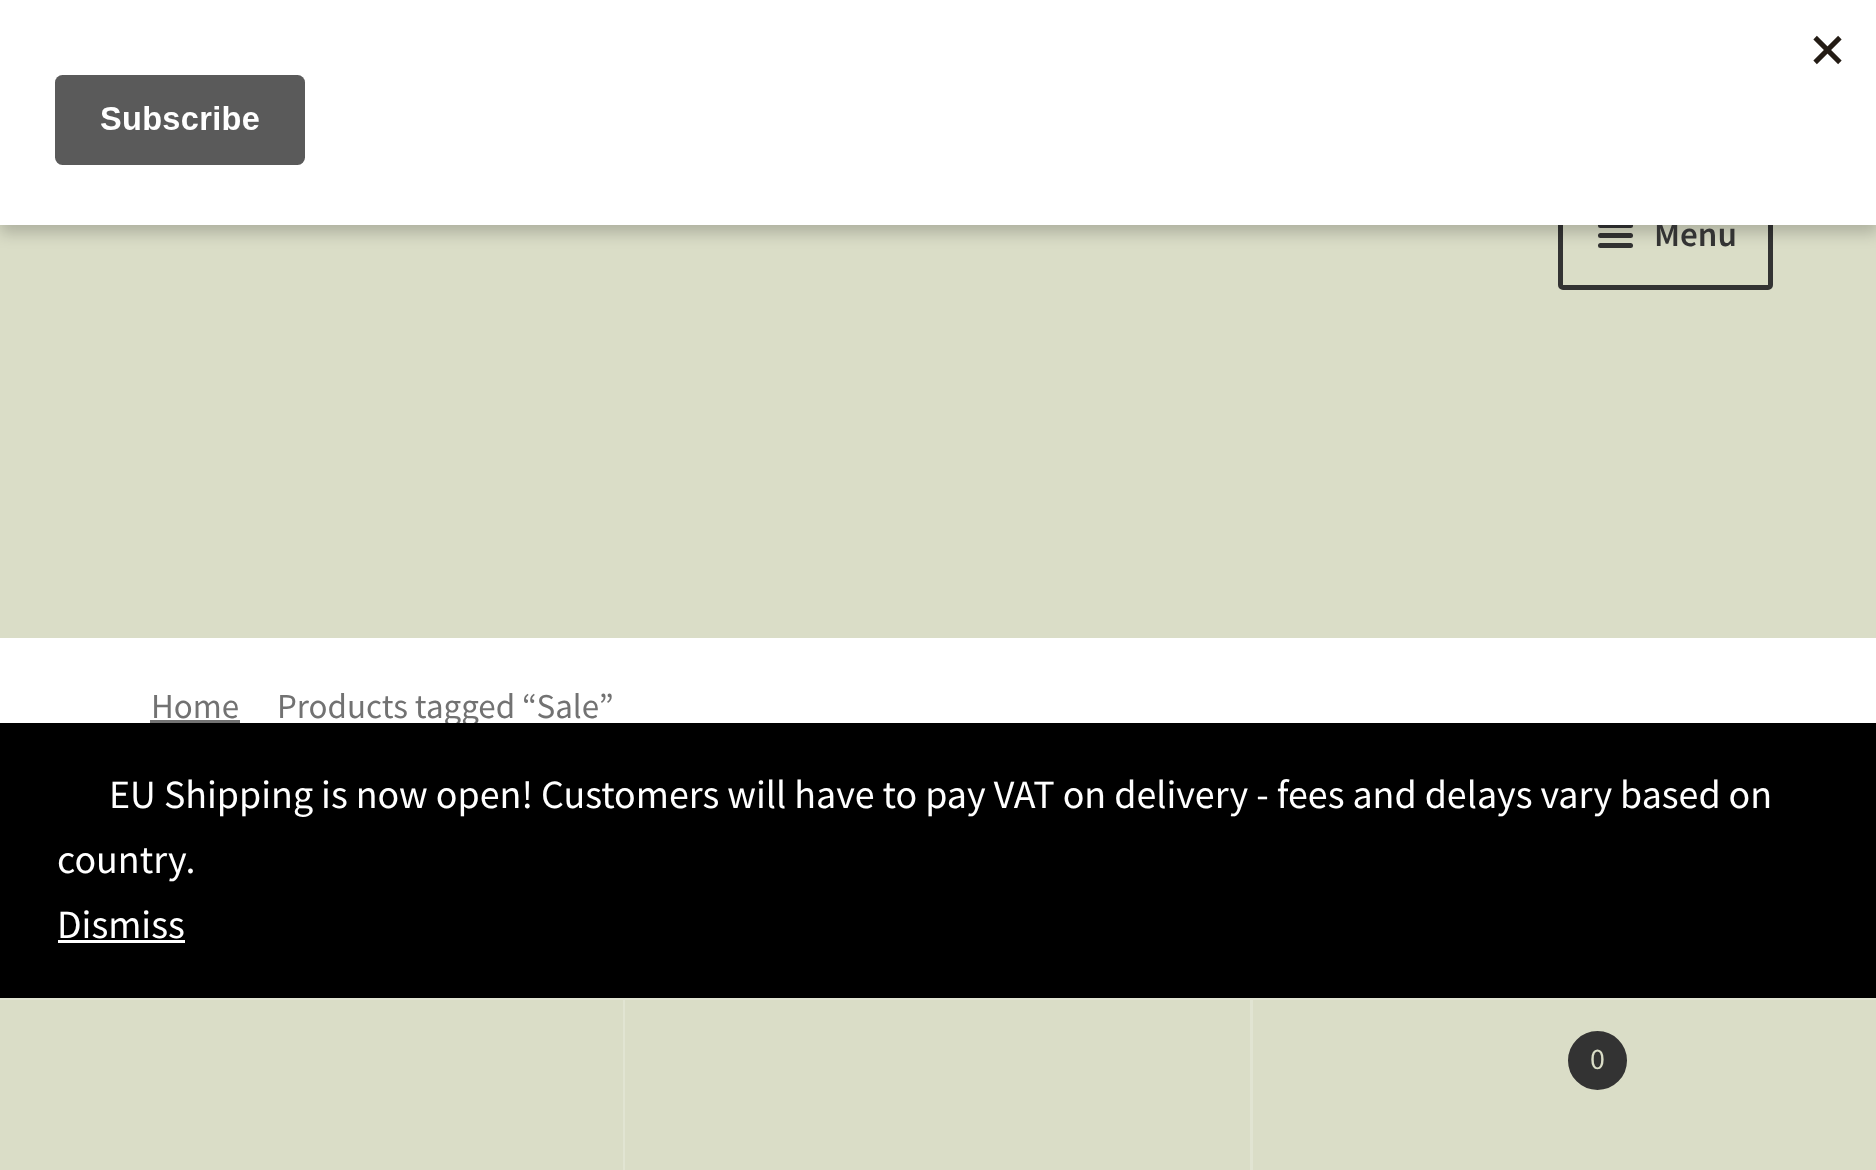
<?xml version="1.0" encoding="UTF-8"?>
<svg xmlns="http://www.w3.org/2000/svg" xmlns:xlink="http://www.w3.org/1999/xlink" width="1876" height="1170">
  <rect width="100%" height="100%" fill="#ffffff" />
  <rect y="225" width="1876" height="413" fill="#daddc7" />
  <rect x="1560.5" y="182.5" width="210" height="105" rx="2.5" fill="none" stroke="#333333" stroke-width="5" />
  <rect x="1598" y="223" width="35" height="5" rx="2.5" fill="#333333" />
  <rect x="1598" y="233" width="35" height="5" rx="2.5" fill="#333333" />
  <rect x="1598" y="243" width="35" height="5" rx="2.5" fill="#333333" />
  <rect y="8" width="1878" height="225" fill="#000000" fill-opacity="0.2" filter="blur(7.5px)" />
  <rect x="150" y="720" width="90" height="3" fill="#727272" />
  <rect y="998" width="1876" height="2" fill="#e1e4d2" />
  <rect y="1000" width="623" height="170" fill="#daddc7" />
  <rect x="623" y="1000" width="2" height="170" fill="#e1e4d2" />
  <rect x="625" y="1000" width="625" height="170" fill="#daddc7" />
  <rect x="1250" y="1000" width="3" height="170" fill="#e1e4d2" />
  <rect x="1253" y="1000" width="623" height="170" fill="#daddc7" />
  <circle cx="1597.5" cy="1060.5" r="31" fill="#333333" stroke="#daddc7" stroke-width="3" />
  <text x="1654" y="246" style="font-family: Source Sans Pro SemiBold; font-size: 35px; font-weight: 600; fill: #333333">Menu</text>
  <rect width="1876" height="225" fill="#ffffff" />
  <image x="55" y="35" width="1787" height="130" xlink:href="image1.png" />
  <text x="151" y="718" style="font-family: Source Sans Pro; font-size: 35px; fill: #727272">Home</text>
  <text x="277" y="718" style="font-family: Source Sans Pro; font-size: 35px; fill: #727272">Products tagged “Sale”</text>
  <text x="1590" y="1069" style="font-family: Source Sans Pro; font-size: 30px; fill: #daddc7">0</text>
  <rect y="723" width="1876" height="275" fill="#000000" />
  <text x="109" y="808" style="font-family: Source Sans Pro; font-size: 40px; fill: #ffffff">EU Shipping is now open! Customers will have to pay VAT on delivery - fees and delays vary based on</text>
  <text x="57" y="873" style="font-family: Source Sans Pro; font-size: 40px; fill: #ffffff">country.</text>
  <text x="57" y="938" style="font-family: Source Sans Pro; font-size: 40px; fill: #ffffff">Dismiss</text>
  <rect x="58" y="940" width="127" height="3" fill="#ffffff" />
</svg>
